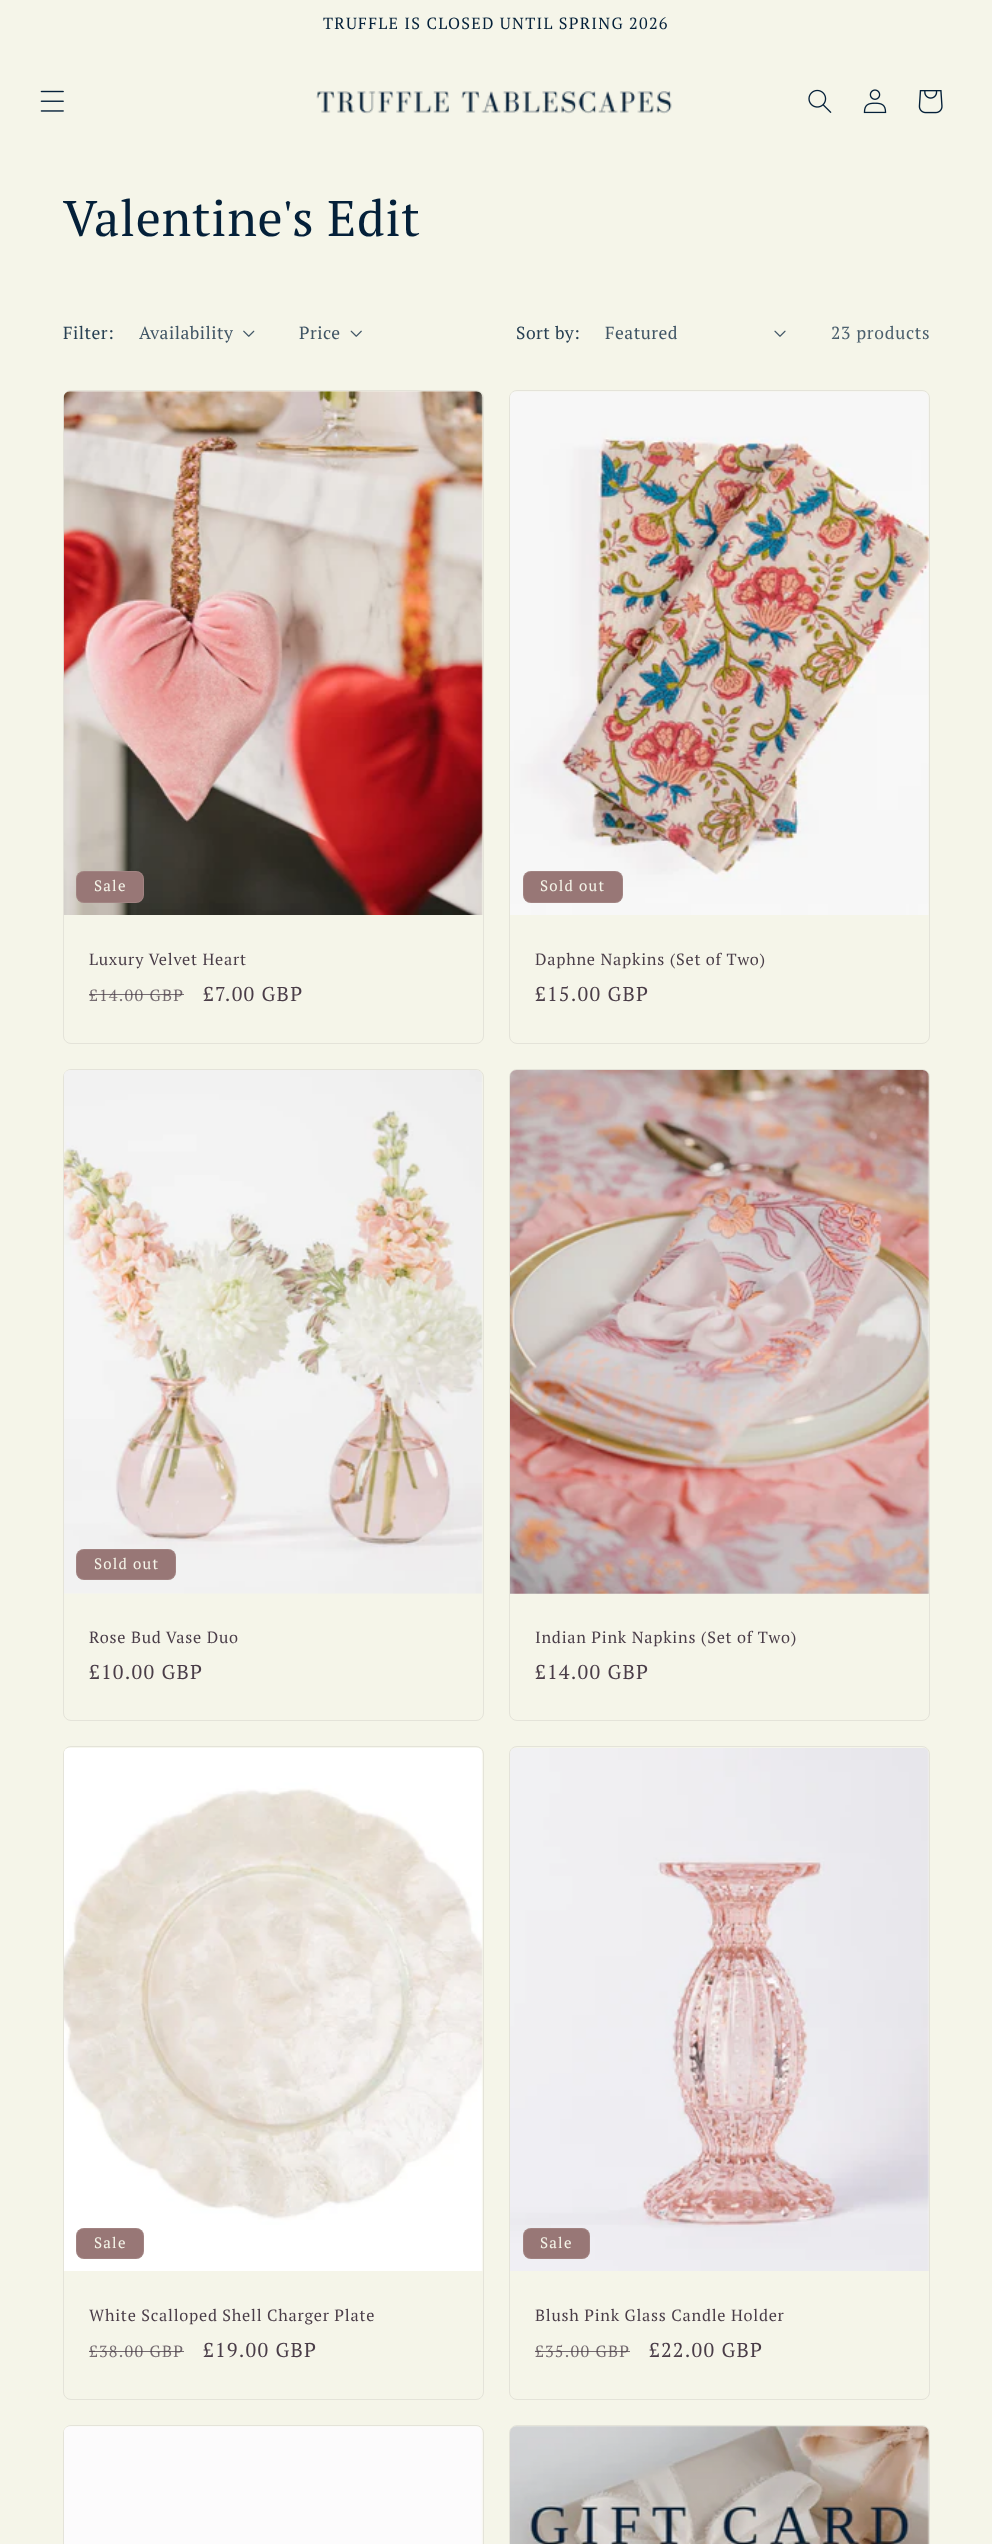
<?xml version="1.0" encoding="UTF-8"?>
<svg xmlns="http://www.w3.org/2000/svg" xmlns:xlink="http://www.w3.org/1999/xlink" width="992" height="2544">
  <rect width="100%" height="100%" fill="#f5f5e9" />
  <image x="40" y="90" width="24" height="22" xlink:href="image1.png" />
  <image x="316" y="91" width="356" height="23" xlink:href="image2.png" />
  <image x="808" y="89" width="24" height="24" xlink:href="image3.png" />
  <image x="863" y="89" width="24" height="25" xlink:href="image4.png" />
  <image x="918" y="90" width="25" height="24" xlink:href="image5.png" />
  <image x="243" y="330" width="12" height="7" xlink:href="image6.png" />
  <image x="350" y="330" width="12" height="7" xlink:href="image7.png" />
  <image x="774" y="330" width="12" height="7" xlink:href="image8.png" />
  <rect x="63.5" y="390.5" width="420" height="653" rx="7.5" fill="none" stroke="#e4e3d9" />
  <image x="63" y="391" width="420" height="524" xlink:href="image9.png" />
  <rect x="76" y="871" width="68" height="32" rx="8" fill="#987776" />
  <rect x="76.5" y="871.5" width="67" height="31" rx="7.5" fill="none" stroke="#f5f5e9" stroke-opacity="0.1" />
  <rect x="509.5" y="390.5" width="420" height="653" rx="7.5" fill="none" stroke="#e4e3d9" />
  <image x="510" y="391" width="419" height="524" xlink:href="image10.png" />
  <rect x="523" y="871" width="100" height="32" rx="8" fill="#987776" />
  <rect x="523.5" y="871.5" width="99" height="31" rx="7.5" fill="none" stroke="#f5f5e9" stroke-opacity="0.1" />
  <rect x="63.5" y="1069.5" width="420" height="651" rx="7.5" fill="none" stroke="#e4e3d9" />
  <image x="64" y="1070" width="419" height="524" xlink:href="image11.png" />
  <rect x="76" y="1549" width="100" height="31" rx="8" fill="#987776" />
  <rect x="76.5" y="1549.5" width="99" height="30" rx="7.5" fill="none" stroke="#f5f5e9" stroke-opacity="0.1" />
  <rect x="509.5" y="1069.5" width="420" height="651" rx="7.5" fill="none" stroke="#e4e3d9" />
  <image x="510" y="1070" width="419" height="524" xlink:href="image12.png" />
  <rect x="63.5" y="1746.5" width="420" height="653" rx="7.5" fill="none" stroke="#e4e3d9" />
  <image x="64" y="1747" width="419" height="524" xlink:href="image13.png" />
  <rect x="76" y="2228" width="68" height="31" rx="8" fill="#987776" />
  <rect x="76.5" y="2228.5" width="67" height="30" rx="7.5" fill="none" stroke="#f5f5e9" stroke-opacity="0.1" />
  <rect x="509.5" y="1746.5" width="420" height="653" rx="7.5" fill="none" stroke="#e4e3d9" />
  <image x="510" y="1748" width="419" height="523" xlink:href="image14.png" />
  <rect x="523" y="2228" width="67" height="31" rx="8" fill="#987776" />
  <rect x="523.5" y="2228.5" width="66" height="30" rx="7.5" fill="none" stroke="#f5f5e9" stroke-opacity="0.1" />
  <rect x="63.5" y="2425.5" width="420" height="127" rx="7.5" fill="none" stroke="#e4e3d9" />
  <image x="64" y="2426" width="419" height="118" xlink:href="image15.png" />
  <rect x="509.5" y="2425.5" width="420" height="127" rx="7.5" fill="none" stroke="#e4e3d9" />
  <image x="510" y="2426" width="419" height="118" xlink:href="image16.png" />
  <text x="323" y="29" style="font-family: PT Serif; font-size: 16.25px; letter-spacing: 1.25px; fill: #042039">TRUFFLE IS CLOSED UNTIL SPRING 2026</text>
  <text x="63" y="236" style="font-family: PT Serif; font-size: 50px; letter-spacing: 0.75px; fill: #042039">Valentine's Edit</text>
  <text x="63" y="339" style="font-family: PT Serif; font-size: 17.5px; letter-spacing: 0.5px; fill: #284053">Filter:</text>
  <text x="139" y="339" style="font-family: PT Serif; font-size: 17.5px; letter-spacing: 0.5px; fill: #405565">Availability</text>
  <text x="299" y="339" style="font-family: PT Serif; font-size: 17.5px; letter-spacing: 0.5px; fill: #405565">Price</text>
  <text x="516" y="339" style="font-family: PT Serif; font-size: 17.5px; letter-spacing: 0.5px; fill: #284053">Sort by:</text>
  <text x="605" y="339" style="font-family: PT Serif; font-size: 17.5px; letter-spacing: 0.5px; fill: #405565">Featured</text>
  <text x="831" y="339" style="font-family: PT Serif; font-size: 17.5px; letter-spacing: 0.75px; fill: #4c606e">23 products</text>
  <text x="94" y="891" style="font-family: PT Serif; font-size: 15px; letter-spacing: 1.25px; fill: #f5f5e9">Sale</text>
  <text x="89" y="965" style="font-family: PT Serif; font-size: 16.25px; letter-spacing: 0.75px; fill: #4a3d48">Luxury Velvet Heart</text>
  <text x="89" y="1001" style="font-family: PT Serif; font-size: 16.25px; letter-spacing: 1.25px; fill: #756b70">£14.00 GBP</text>
  <rect x="89" y="994" width="95" height="1" fill="#4a3d48" fill-opacity="0.75" />
  <text x="203" y="1001" style="font-family: PT Serif; font-size: 20px; letter-spacing: 1.25px; fill: #4a3d48">£7.00 GBP</text>
  <text x="540" y="891" style="font-family: PT Serif; font-size: 15px; letter-spacing: 1.25px; fill: #f5f5e9">Sold out</text>
  <text x="535" y="965" style="font-family: PT Serif; font-size: 16.25px; letter-spacing: 0.75px; fill: #4a3d48">Daphne Napkins (Set of Two)</text>
  <text x="535" y="1001" style="font-family: PT Serif; font-size: 20px; letter-spacing: 1.25px; fill: #4a3d48">£15.00 GBP</text>
  <text x="94" y="1569" style="font-family: PT Serif; font-size: 15px; letter-spacing: 1.25px; fill: #f5f5e9">Sold out</text>
  <text x="89" y="1643" style="font-family: PT Serif; font-size: 16.25px; letter-spacing: 0.75px; fill: #4a3d48">Rose Bud Vase Duo</text>
  <text x="89" y="1679" style="font-family: PT Serif; font-size: 20px; letter-spacing: 1.25px; fill: #4a3d48">£10.00 GBP</text>
  <text x="535" y="1643" style="font-family: PT Serif; font-size: 16.25px; letter-spacing: 0.75px; fill: #4a3d48">Indian Pink Napkins (Set of Two)</text>
  <text x="535" y="1679" style="font-family: PT Serif; font-size: 20px; letter-spacing: 1.25px; fill: #4a3d48">£14.00 GBP</text>
  <text x="94" y="2248" style="font-family: PT Serif; font-size: 15px; letter-spacing: 1.25px; fill: #f5f5e9">Sale</text>
  <text x="89" y="2321" style="font-family: PT Serif; font-size: 16.25px; letter-spacing: 0.75px; fill: #4a3d48">White Scalloped Shell Charger Plate</text>
  <text x="89" y="2357" style="font-family: PT Serif; font-size: 16.25px; letter-spacing: 1.25px; fill: #756b70">£38.00 GBP</text>
  <rect x="89" y="2351" width="95" height="1" fill="#4a3d48" fill-opacity="0.75" />
  <text x="203" y="2357" style="font-family: PT Serif; font-size: 20px; letter-spacing: 1.25px; fill: #4a3d48">£19.00 GBP</text>
  <text x="540" y="2248" style="font-family: PT Serif; font-size: 15px; letter-spacing: 1.25px; fill: #f5f5e9">Sale</text>
  <text x="535" y="2321" style="font-family: PT Serif; font-size: 16.25px; letter-spacing: 0.75px; fill: #4a3d48">Blush Pink Glass Candle Holder</text>
  <text x="535" y="2357" style="font-family: PT Serif; font-size: 16.25px; letter-spacing: 1.25px; fill: #756b70">£35.00 GBP</text>
  <rect x="535" y="2351" width="95" height="1" fill="#4a3d48" fill-opacity="0.75" />
  <text x="649" y="2357" style="font-family: PT Serif; font-size: 20px; letter-spacing: 1.25px; fill: #4a3d48">£22.00 GBP</text>
</svg>
